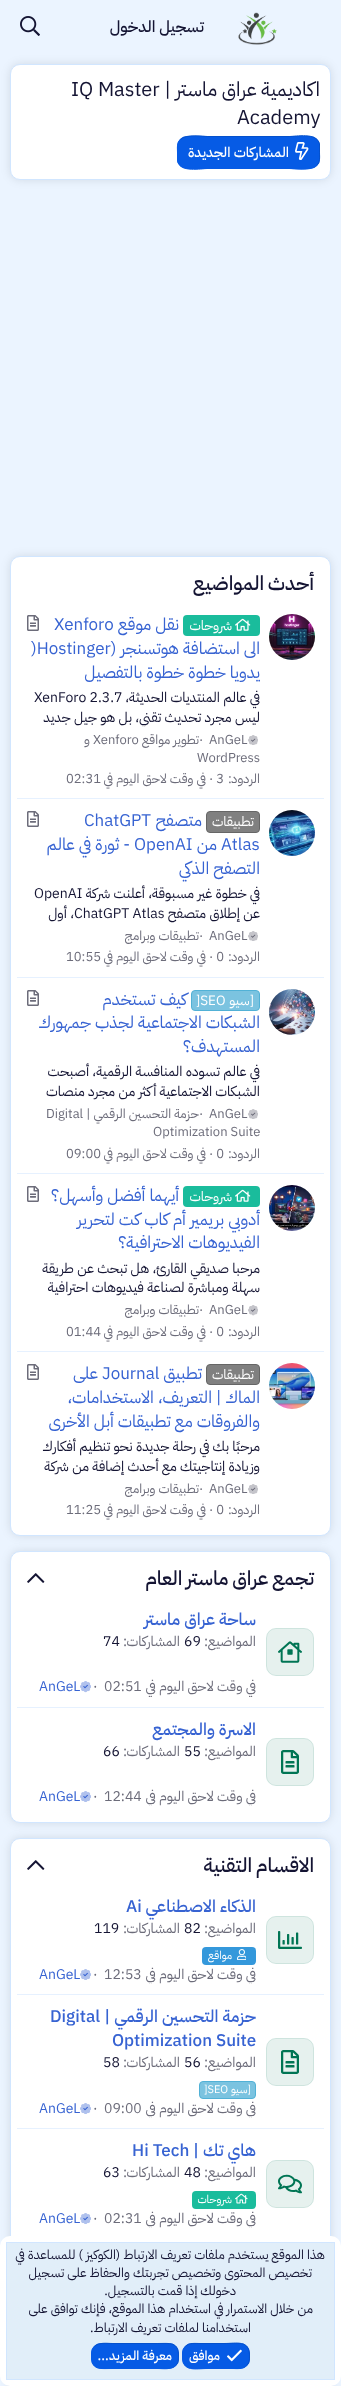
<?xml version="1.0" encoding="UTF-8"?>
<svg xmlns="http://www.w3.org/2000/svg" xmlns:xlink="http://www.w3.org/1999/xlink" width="341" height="2386">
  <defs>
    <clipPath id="clip1"><rect x="25" y="688" width="235" height="39" /></clipPath>
    <clipPath id="clip2"><rect x="39" y="1677" width="217" height="20" /></clipPath>
    <clipPath id="clip3"><rect x="39" y="1787" width="217" height="19" /></clipPath>
    <clipPath id="clip4"><rect x="39" y="1965" width="217" height="19" /></clipPath>
    <clipPath id="clip5"><rect x="39" y="2099" width="217" height="19" /></clipPath>
    <clipPath id="clip6"><rect x="39" y="2209" width="217" height="19" /></clipPath>
  </defs>
  <rect width="100%" height="100%" fill="#ebf4ff" />
  <image x="238" y="12" width="39" height="33" xlink:href="image1.png" />
  <image x="20" y="16" width="20" height="20" xlink:href="image2.png" />
  <rect x="10" y="64" width="321" height="116" rx="10" fill="#000000" fill-opacity="0.1" filter="blur(5px)" />
  <rect x="10.5" y="64.5" width="320" height="115" rx="9.5" fill="#ffffff" stroke="#d1e6ff" />
  <rect x="177" y="136" width="143" height="33" rx="10" fill="#065be5" />
  <path d="M 180.5 139.5 c 6 -6 23.5 -3 27 -3 h 82 c 6 0 27.5 -4.5 30 7.5 v 8.5 c 0 4.5 1 9.5 -3 13" fill="none" stroke="#0551cc" />
  <path d="M 316.5 165.5 c -6 6 -23.5 3 -27 3 h -82 c -6 0 -27.5 4.5 -30 -7.5 v -8.5 c 0 -4.5 -1 -9.5 3 -13" fill="none" stroke="#065be5" />
  <image x="295" y="142" width="14" height="18" xlink:href="image3.png" />
  <rect x="10" y="556" width="321" height="980" rx="10" fill="#000000" fill-opacity="0.1" filter="blur(5px)" />
  <rect x="10.5" y="556.5" width="320" height="979" rx="9.5" fill="#ffffff" stroke="#d1e6ff" />
  <image x="269" y="614" width="46" height="46" xlink:href="image4.png" />
  <image x="27" y="615" width="12" height="16" xlink:href="image5.png" />
  <rect x="183" y="615" width="77" height="21" rx="4" fill="#1abc9c" />
  <image x="235" y="618" width="16" height="13" xlink:href="image6.png" />
  <image x="248" y="735" width="10" height="10" xlink:href="image7.png" />
  <rect x="17" y="798" width="307" height="1" fill="#e6f1ff" />
  <image x="269" y="810" width="46" height="46" xlink:href="image8.png" />
  <rect x="206.5" y="811.5" width="53" height="21" rx="3.5" fill="#808080" stroke="#666666" />
  <image x="27" y="811" width="12" height="16" xlink:href="image5.png" />
  <image x="248" y="931" width="10" height="10" xlink:href="image7.png" />
  <rect x="17" y="977" width="307" height="1" fill="#e6f1ff" />
  <image x="269" y="989" width="46" height="46" xlink:href="image9.png" />
  <rect x="191.5" y="990.5" width="68" height="20" rx="3.5" fill="#7bc3e0" stroke="#51b1d6" />
  <image x="27" y="990" width="12" height="16" xlink:href="image5.png" />
  <image x="248" y="1109" width="10" height="10" xlink:href="image7.png" />
  <rect x="17" y="1173" width="307" height="1" fill="#e6f1ff" />
  <image x="269" y="1185" width="46" height="46" xlink:href="image10.png" />
  <rect x="183" y="1186" width="77" height="21" rx="4" fill="#1abc9c" />
  <image x="235" y="1189" width="16" height="13" xlink:href="image6.png" />
  <image x="27" y="1186" width="12" height="16" xlink:href="image5.png" />
  <image x="248" y="1305" width="10" height="11" xlink:href="image11.png" />
  <rect x="17" y="1351" width="307" height="1" fill="#e6f1ff" />
  <image x="269" y="1363" width="46" height="46" xlink:href="image12.png" />
  <rect x="206.5" y="1364.5" width="53" height="20" rx="3.5" fill="#808080" stroke="#666666" />
  <image x="27" y="1364" width="12" height="16" xlink:href="image5.png" />
  <image x="248" y="1484" width="10" height="10" xlink:href="image7.png" />
  <rect x="10" y="1551" width="321" height="272" rx="10" fill="#000000" fill-opacity="0.1" filter="blur(5px)" />
  <rect x="10.5" y="1551.5" width="320" height="271" rx="9.5" fill="#ffffff" stroke="#d1e6ff" />
  <image x="27" y="1573" width="18" height="10" xlink:href="image13.png" />
  <rect x="266" y="1628" width="48" height="48" rx="10" fill="#e6f1ee" />
  <rect x="266.5" y="1628.5" width="47" height="47" rx="9.5" fill="none" stroke="#007554" stroke-opacity="0.1" />
  <image x="278" y="1641" width="24" height="22" xlink:href="image14.png" />
  <image x="80" y="1681" width="11" height="12" xlink:href="image15.png" />
  <rect x="17" y="1707" width="307" height="1" fill="#e6f1ff" />
  <rect x="266" y="1738" width="48" height="48" rx="10" fill="#e6f1ee" />
  <rect x="266.5" y="1738.5" width="47" height="47" rx="9.5" fill="none" stroke="#007554" stroke-opacity="0.1" />
  <image x="281" y="1750" width="18" height="24" xlink:href="image16.png" />
  <image x="80" y="1791" width="11" height="11" xlink:href="image17.png" />
  <rect x="10" y="1838" width="321" height="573" rx="10" fill="#000000" fill-opacity="0.1" filter="blur(5px)" />
  <rect x="10.5" y="1838.5" width="320" height="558" rx="9.5" fill="#ffffff" stroke="#d1e6ff" />
  <image x="27" y="1860" width="18" height="10" xlink:href="image13.png" />
  <rect x="266" y="1916" width="48" height="48" rx="10" fill="#e6f1ee" />
  <rect x="266.5" y="1916.5" width="47" height="47" rx="9.5" fill="none" stroke="#007554" stroke-opacity="0.1" />
  <image x="278" y="1931" width="24" height="18" xlink:href="image18.png" />
  <rect x="202" y="1947" width="54" height="18" rx="4" fill="#3498db" />
  <image x="237" y="1949" width="9" height="11" xlink:href="image19.png" />
  <image x="80" y="1969" width="11" height="11" xlink:href="image17.png" />
  <rect x="17" y="1994" width="307" height="1" fill="#e6f1ff" />
  <rect x="266" y="2038" width="48" height="48" rx="10" fill="#e6f1ee" />
  <rect x="266.5" y="2038.5" width="47" height="47" rx="9.5" fill="none" stroke="#007554" stroke-opacity="0.1" />
  <image x="281" y="2050" width="18" height="24" xlink:href="image16.png" />
  <rect x="199.5" y="2081.5" width="56" height="17" rx="3.5" fill="#7bc3e0" stroke="#51b1d6" />
  <image x="80" y="2103" width="11" height="11" xlink:href="image17.png" />
  <rect x="17" y="2128" width="307" height="1" fill="#e6f1ff" />
  <rect x="266" y="2160" width="48" height="48" rx="10" fill="#e6f1ee" />
  <rect x="266.5" y="2160.5" width="47" height="47" rx="9.5" fill="none" stroke="#007554" stroke-opacity="0.1" />
  <image x="278" y="2174" width="24" height="20" xlink:href="image20.png" />
  <rect x="192" y="2191" width="64" height="18" rx="4" fill="#1abc9c" />
  <image x="235" y="2193" width="13" height="11" xlink:href="image21.png" />
  <image x="80" y="2213" width="11" height="11" xlink:href="image17.png" />
  <rect y="2236" width="341" height="150" rx="10" fill="#ffffff" />
  <rect x="6.5" y="2242.5" width="328" height="137" fill="#e1eef9" stroke="#d1e6ff" />
  <rect x="182" y="2343" width="68" height="26" rx="10" fill="#065be5" />
  <path d="M 185.5 2346.5 c 3.5 -4 9.5 -3 14.5 -3 h 24 c 13 0 25.5 -4 25.5 12.5 c 0 3.5 0 7 -3 9.5" fill="none" stroke="#0551cc" />
  <path d="M 246.5 2365.5 c -3.5 4 -9.5 3 -14.5 3 h -24 c -13 0 -25.5 4 -25.5 -12.5 c 0 -3.5 0 -7 3 -9.5" fill="none" stroke="#065be5" />
  <image x="227" y="2349" width="15" height="13" xlink:href="image22.png" />
  <rect x="91" y="2343" width="88" height="26" rx="10" fill="#065be5" />
  <path d="M 94.5 2346.5 c 4.5 -4.5 12.5 -3 18 -3 h 45 c 12.5 0 21 -2 21 12.5 c 0 3.5 0 7 -3 9.5" fill="none" stroke="#0551cc" />
  <path d="M 175.5 2365.5 c -4.5 4.5 -12.5 3 -18 3 h -45 c -12.5 0 -21 2 -21 -12.5 c 0 -3.5 0 -7 3 -9.5" fill="none" stroke="#065be5" />
  <text x="204" y="32" style="font-family: IBM Plex Sans Arabic; font-size: 16px; font-weight: 500; direction: rtl; fill: #141433">تسجيل الدخول</text>
  <text x="320" y="96" style="font-family: IBM Plex Sans Arabic; font-size: 20px; direction: rtl; fill: #141433">اكاديمية عراق ماستر |</text>
  <text x="71" y="96" style="font-family: IBM Plex Sans Arabic; font-size: 20px; fill: #141433">IQ Master</text>
  <text x="237" y="124" style="font-family: IBM Plex Sans Arabic; font-size: 20px; fill: #141433">Academy</text>
  <text x="289" y="157" style="font-family: IBM Plex Sans Arabic; font-size: 14px; font-weight: 500; direction: rtl; fill: #ffffff">المشاركات الجديدة</text>
  <text x="314" y="590" word-spacing="-1" style="font-family: IBM Plex Sans Arabic; font-size: 20px; font-weight: 500; letter-spacing: 0.1px; direction: rtl; fill: #141433">أحدث المواضيع</text>
  <text x="232" y="630" style="font-family: IBM Plex Sans Arabic; font-size: 13.5px; direction: rtl; fill: #ffffff">شروحات</text>
  <text x="179" y="630" style="font-family: IBM Plex Sans Arabic; font-size: 17px; direction: rtl; fill: #3763d2">نقل موقع</text>
  <text x="54" y="630" style="font-family: IBM Plex Sans Arabic; font-size: 17px; fill: #3763d2">Xenforo</text>
  <text x="260" y="654" style="font-family: IBM Plex Sans Arabic; font-size: 17px; direction: rtl; fill: #3763d2">الى استضافة هوتسنجر (</text>
  <text x="31" y="654" style="font-family: IBM Plex Sans Arabic; font-size: 17px; fill: #3763d2">)Hostinger</text>
  <text x="260" y="678" style="font-family: IBM Plex Sans Arabic; font-size: 17px; direction: rtl; fill: #3763d2">يدويا خطوة خطوة بالتفصيل</text>
  <text x="260" y="702" style="font-family: IBM Plex Sans Arabic; font-size: 14px; direction: rtl; fill: #141433">في عالم المنتديات الحديثة،</text>
  <text x="34" y="702" style="font-family: IBM Plex Sans Arabic; font-size: 14px; fill: #141433">XenForo 2.3.7</text>
  <g clip-path="url(#clip1)">
    <text x="260" y="722" style="font-family: IBM Plex Sans Arabic; font-size: 14px; direction: rtl; fill: #141433">ليس مجرد تحديث تقني، بل هو جيل جديد</text>
  </g>
  <text x="209" y="744" style="font-family: IBM Plex Sans Arabic; font-size: 13px; fill: #6c6c7a">AnGeL</text>
  <text x="199" y="744" style="font-family: IBM Plex Sans Arabic; font-size: 13px; fill: #6c6c7a">·</text>
  <text x="199" y="744" style="font-family: IBM Plex Sans Arabic; font-size: 13px; direction: rtl; fill: #6c6c7a">تطوير مواقع</text>
  <text x="93" y="744" style="font-family: IBM Plex Sans Arabic; font-size: 13px; fill: #6c6c7a">Xenforo</text>
  <text x="90" y="744" style="font-family: IBM Plex Sans Arabic; font-size: 13px; direction: rtl; fill: #6c6c7a">و</text>
  <text x="197" y="762" style="font-family: IBM Plex Sans Arabic; font-size: 13px; fill: #6c6c7a">WordPress</text>
  <text x="260" y="783" style="font-family: IBM Plex Sans Arabic; font-size: 13px; direction: rtl; fill: #6c6c7a">الردود</text>
  <text x="228" y="783" style="font-family: IBM Plex Sans Arabic; font-size: 13px; fill: #6c6c7a">:</text>
  <text x="209" y="783" style="font-family: IBM Plex Sans Arabic; font-size: 13px; fill: #6c6c7a">· 3</text>
  <text x="206" y="783" style="font-family: IBM Plex Sans Arabic; font-size: 13px; direction: rtl; fill: #6c6c7a">في وقت لاحق اليوم في</text>
  <text x="66" y="783" style="font-family: IBM Plex Sans Arabic; font-size: 13px; fill: #6c6c7a">02:31</text>
  <text x="254" y="826" style="font-family: IBM Plex Sans Arabic; font-size: 13.5px; direction: rtl; fill: #ffffff">تطبيقات</text>
  <text x="202" y="826" style="font-family: IBM Plex Sans Arabic; font-size: 17px; direction: rtl; fill: #3763d2">متصفح</text>
  <text x="84" y="826" style="font-family: IBM Plex Sans Arabic; font-size: 17px; fill: #3763d2">ChatGPT</text>
  <text x="221" y="850" style="font-family: IBM Plex Sans Arabic; font-size: 17px; fill: #3763d2">Atlas</text>
  <text x="217" y="850" style="font-family: IBM Plex Sans Arabic; font-size: 17px; direction: rtl; fill: #3763d2">من</text>
  <text x="134" y="850" style="font-family: IBM Plex Sans Arabic; font-size: 17px; fill: #3763d2">OpenAI</text>
  <text x="130" y="850" style="font-family: IBM Plex Sans Arabic; font-size: 17px; direction: rtl; fill: #3763d2">- ثورة في عالم</text>
  <text x="260" y="874" style="font-family: IBM Plex Sans Arabic; font-size: 17px; direction: rtl; fill: #3763d2">التصفح الذكي</text>
  <text x="260" y="898" style="font-family: IBM Plex Sans Arabic; font-size: 14px; direction: rtl; fill: #141433">في خطوة غير مسبوقة، أعلنت شركة</text>
  <text x="34" y="898" style="font-family: IBM Plex Sans Arabic; font-size: 14px; fill: #141433">OpenAI</text>
  <text x="260" y="918" style="font-family: IBM Plex Sans Arabic; font-size: 14px; direction: rtl; fill: #141433">عن إطلاق متصفح</text>
  <text x="74" y="918" style="font-family: IBM Plex Sans Arabic; font-size: 14px; fill: #141433">ChatGPT Atlas</text>
  <text x="74" y="918" style="font-family: IBM Plex Sans Arabic; font-size: 14px; direction: rtl; fill: #141433">، أول</text>
  <text x="209" y="940" style="font-family: IBM Plex Sans Arabic; font-size: 13px; fill: #6c6c7a">AnGeL</text>
  <text x="199" y="940" style="font-family: IBM Plex Sans Arabic; font-size: 13px; fill: #6c6c7a">·</text>
  <text x="199" y="940" style="font-family: IBM Plex Sans Arabic; font-size: 13px; direction: rtl; fill: #6c6c7a">تطبيقات وبرامج</text>
  <text x="260" y="961" style="font-family: IBM Plex Sans Arabic; font-size: 13px; direction: rtl; fill: #6c6c7a">الردود</text>
  <text x="228" y="961" style="font-family: IBM Plex Sans Arabic; font-size: 13px; fill: #6c6c7a">:</text>
  <text x="209" y="961" style="font-family: IBM Plex Sans Arabic; font-size: 13px; fill: #6c6c7a">· 0</text>
  <text x="206" y="961" style="font-family: IBM Plex Sans Arabic; font-size: 13px; direction: rtl; fill: #6c6c7a">في وقت لاحق اليوم في</text>
  <text x="66" y="961" style="font-family: IBM Plex Sans Arabic; font-size: 13px; fill: #6c6c7a">10:55</text>
  <text x="254" y="1005" style="font-family: IBM Plex Sans Arabic; font-size: 13.5px; direction: rtl; fill: #ffffff">[سيو</text>
  <text x="196" y="1005" style="font-family: IBM Plex Sans Arabic; font-size: 13.5px; fill: #ffffff">]SEO</text>
  <text x="187" y="1005" style="font-family: IBM Plex Sans Arabic; font-size: 17px; direction: rtl; fill: #3763d2">كيف تستخدم</text>
  <text x="260" y="1028" style="font-family: IBM Plex Sans Arabic; font-size: 17px; direction: rtl; fill: #3763d2">الشبكات الاجتماعية لجذب جمهورك</text>
  <text x="260" y="1052" style="font-family: IBM Plex Sans Arabic; font-size: 17px; direction: rtl; fill: #3763d2">المستهدف؟</text>
  <text x="260" y="1076" style="font-family: IBM Plex Sans Arabic; font-size: 14px; direction: rtl; fill: #141433">في عالم تسوده المنافسة الرقمية، أصبحت</text>
  <text x="260" y="1096" style="font-family: IBM Plex Sans Arabic; font-size: 14px; direction: rtl; fill: #141433">الشبكات الاجتماعية أكثر من مجرد منصات</text>
  <text x="209" y="1118" style="font-family: IBM Plex Sans Arabic; font-size: 13px; fill: #6c6c7a">AnGeL</text>
  <text x="199" y="1118" style="font-family: IBM Plex Sans Arabic; font-size: 13px; fill: #6c6c7a">·</text>
  <text x="199" y="1118" style="font-family: IBM Plex Sans Arabic; font-size: 13px; direction: rtl; fill: #6c6c7a">حزمة التحسين الرقمي |</text>
  <text x="46" y="1118" style="font-family: IBM Plex Sans Arabic; font-size: 13px; fill: #6c6c7a">Digital</text>
  <text x="153" y="1136" style="font-family: IBM Plex Sans Arabic; font-size: 13px; fill: #6c6c7a">Optimization Suite</text>
  <text x="260" y="1158" style="font-family: IBM Plex Sans Arabic; font-size: 13px; direction: rtl; fill: #6c6c7a">الردود</text>
  <text x="228" y="1158" style="font-family: IBM Plex Sans Arabic; font-size: 13px; fill: #6c6c7a">:</text>
  <text x="209" y="1158" style="font-family: IBM Plex Sans Arabic; font-size: 13px; fill: #6c6c7a">· 0</text>
  <text x="206" y="1158" style="font-family: IBM Plex Sans Arabic; font-size: 13px; direction: rtl; fill: #6c6c7a">في وقت لاحق اليوم في</text>
  <text x="66" y="1158" style="font-family: IBM Plex Sans Arabic; font-size: 13px; fill: #6c6c7a">09:00</text>
  <text x="232" y="1201" style="font-family: IBM Plex Sans Arabic; font-size: 13.5px; direction: rtl; fill: #ffffff">شروحات</text>
  <text x="179" y="1201" style="font-family: IBM Plex Sans Arabic; font-size: 17px; direction: rtl; fill: #3763d2">أيهما أفضل وأسهل؟</text>
  <text x="260" y="1225" style="font-family: IBM Plex Sans Arabic; font-size: 17px; direction: rtl; fill: #3763d2">أدوبي بريمير أم كاب كت لتحرير</text>
  <text x="260" y="1248" style="font-family: IBM Plex Sans Arabic; font-size: 17px; direction: rtl; fill: #3763d2">الفيديوهات الاحترافية؟</text>
  <text x="260" y="1273" style="font-family: IBM Plex Sans Arabic; font-size: 14px; direction: rtl; fill: #141433">مرحبا صديقي القارئ، هل تبحث عن طريقة</text>
  <text x="260" y="1292" style="font-family: IBM Plex Sans Arabic; font-size: 14px; direction: rtl; fill: #141433">سهلة ومباشرة لصناعة فيديوهات احترافية</text>
  <text x="209" y="1314" style="font-family: IBM Plex Sans Arabic; font-size: 13px; fill: #6c6c7a">AnGeL</text>
  <text x="199" y="1314" style="font-family: IBM Plex Sans Arabic; font-size: 13px; fill: #6c6c7a">·</text>
  <text x="199" y="1314" style="font-family: IBM Plex Sans Arabic; font-size: 13px; direction: rtl; fill: #6c6c7a">تطبيقات وبرامج</text>
  <text x="260" y="1336" style="font-family: IBM Plex Sans Arabic; font-size: 13px; direction: rtl; fill: #6c6c7a">الردود</text>
  <text x="228" y="1336" style="font-family: IBM Plex Sans Arabic; font-size: 13px; fill: #6c6c7a">:</text>
  <text x="209" y="1336" style="font-family: IBM Plex Sans Arabic; font-size: 13px; fill: #6c6c7a">· 0</text>
  <text x="206" y="1336" style="font-family: IBM Plex Sans Arabic; font-size: 13px; direction: rtl; fill: #6c6c7a">في وقت لاحق اليوم في</text>
  <text x="66" y="1336" style="font-family: IBM Plex Sans Arabic; font-size: 13px; fill: #6c6c7a">01:44</text>
  <text x="254" y="1379" style="font-family: IBM Plex Sans Arabic; font-size: 13.5px; direction: rtl; fill: #ffffff">تطبيقات</text>
  <text x="202" y="1379" style="font-family: IBM Plex Sans Arabic; font-size: 17px; direction: rtl; fill: #3763d2">تطبيق</text>
  <text x="102" y="1379" style="font-family: IBM Plex Sans Arabic; font-size: 17px; fill: #3763d2">Journal</text>
  <text x="98" y="1379" style="font-family: IBM Plex Sans Arabic; font-size: 17px; direction: rtl; fill: #3763d2">على</text>
  <text x="260" y="1403" style="font-family: IBM Plex Sans Arabic; font-size: 17px; direction: rtl; fill: #3763d2">الماك | التعريف، الاستخدامات،</text>
  <text x="260" y="1427" style="font-family: IBM Plex Sans Arabic; font-size: 17px; direction: rtl; fill: #3763d2">والفروقات مع تطبيقات أبل الأخرى</text>
  <text x="260" y="1451" style="font-family: IBM Plex Sans Arabic; font-size: 14px; direction: rtl; fill: #141433">مرحبًا بك في رحلة جديدة نحو تنظيم أفكارك</text>
  <text x="260" y="1471" style="font-family: IBM Plex Sans Arabic; font-size: 14px; direction: rtl; fill: #141433">وزيادة إنتاجيتك مع أحدث إضافة من شركة</text>
  <text x="209" y="1493" style="font-family: IBM Plex Sans Arabic; font-size: 13px; fill: #6c6c7a">AnGeL</text>
  <text x="199" y="1493" style="font-family: IBM Plex Sans Arabic; font-size: 13px; fill: #6c6c7a">·</text>
  <text x="199" y="1493" style="font-family: IBM Plex Sans Arabic; font-size: 13px; direction: rtl; fill: #6c6c7a">تطبيقات وبرامج</text>
  <text x="260" y="1514" style="font-family: IBM Plex Sans Arabic; font-size: 13px; direction: rtl; fill: #6c6c7a">الردود</text>
  <text x="228" y="1514" style="font-family: IBM Plex Sans Arabic; font-size: 13px; fill: #6c6c7a">:</text>
  <text x="209" y="1514" style="font-family: IBM Plex Sans Arabic; font-size: 13px; fill: #6c6c7a">· 0</text>
  <text x="206" y="1514" style="font-family: IBM Plex Sans Arabic; font-size: 13px; direction: rtl; fill: #6c6c7a">في وقت لاحق اليوم في</text>
  <text x="66" y="1514" style="font-family: IBM Plex Sans Arabic; font-size: 13px; fill: #6c6c7a">11:25</text>
  <text x="314" y="1585" word-spacing="-1" style="font-family: IBM Plex Sans Arabic; font-size: 20px; font-weight: 500; letter-spacing: 0.1px; direction: rtl; fill: #141433">تجمع عراق ماستر العام</text>
  <text x="256" y="1625" style="font-family: IBM Plex Sans Arabic; font-size: 17px; font-weight: 500; direction: rtl; fill: #3763d2">ساحة عراق ماستر</text>
  <text x="256" y="1646" style="font-family: IBM Plex Sans Arabic; font-size: 14px; direction: rtl; fill: #6c6c7a">المواضيع</text>
  <text x="204" y="1646" style="font-family: IBM Plex Sans Arabic; font-size: 14px; fill: #6c6c7a">:</text>
  <text x="184" y="1646" style="font-family: IBM Plex Sans Arabic; font-size: 14px; fill: #141433">69</text>
  <text x="180" y="1646" style="font-family: IBM Plex Sans Arabic; font-size: 14px; direction: rtl; fill: #6c6c7a">المشاركات</text>
  <text x="123" y="1646" style="font-family: IBM Plex Sans Arabic; font-size: 14px; fill: #6c6c7a">:</text>
  <text x="103" y="1646" style="font-family: IBM Plex Sans Arabic; font-size: 14px; fill: #141433">74</text>
  <g clip-path="url(#clip2)">
    <text x="256" y="1691" style="font-family: IBM Plex Sans Arabic; font-size: 14px; direction: rtl; fill: #6c6c7a">في وقت لاحق اليوم في</text>
  </g>
  <text x="104" y="1691" style="font-family: IBM Plex Sans Arabic; font-size: 14px; fill: #6c6c7a">02:51</text>
  <text x="93" y="1691" style="font-family: IBM Plex Sans Arabic; font-size: 14px; fill: #6c6c7a">·</text>
  <text x="39" y="1691" style="font-family: IBM Plex Sans Arabic; font-size: 14px; fill: #3763d2">AnGeL</text>
  <text x="256" y="1735" style="font-family: IBM Plex Sans Arabic; font-size: 17px; font-weight: 500; direction: rtl; fill: #3763d2">الاسرة والمجتمع</text>
  <text x="256" y="1756" style="font-family: IBM Plex Sans Arabic; font-size: 14px; direction: rtl; fill: #6c6c7a">المواضيع</text>
  <text x="204" y="1756" style="font-family: IBM Plex Sans Arabic; font-size: 14px; fill: #6c6c7a">:</text>
  <text x="184" y="1756" style="font-family: IBM Plex Sans Arabic; font-size: 14px; fill: #141433">55</text>
  <text x="180" y="1756" style="font-family: IBM Plex Sans Arabic; font-size: 14px; direction: rtl; fill: #6c6c7a">المشاركات</text>
  <text x="123" y="1756" style="font-family: IBM Plex Sans Arabic; font-size: 14px; fill: #6c6c7a">:</text>
  <text x="103" y="1756" style="font-family: IBM Plex Sans Arabic; font-size: 14px; fill: #141433">66</text>
  <g clip-path="url(#clip3)">
    <text x="256" y="1801" style="font-family: IBM Plex Sans Arabic; font-size: 14px; direction: rtl; fill: #6c6c7a">في وقت لاحق اليوم في</text>
  </g>
  <text x="104" y="1801" style="font-family: IBM Plex Sans Arabic; font-size: 14px; fill: #6c6c7a">12:44</text>
  <text x="93" y="1801" style="font-family: IBM Plex Sans Arabic; font-size: 14px; fill: #6c6c7a">·</text>
  <text x="39" y="1801" style="font-family: IBM Plex Sans Arabic; font-size: 14px; fill: #3763d2">AnGeL</text>
  <text x="314" y="1872" word-spacing="-1" style="font-family: IBM Plex Sans Arabic; font-size: 20px; font-weight: 500; letter-spacing: 0.1px; direction: rtl; fill: #141433">الاقسام التقنية</text>
  <text x="256" y="1912" style="font-family: IBM Plex Sans Arabic; font-size: 17px; font-weight: 500; direction: rtl; fill: #3763d2">الذكاء الاصطناعي</text>
  <text x="126" y="1912" style="font-family: IBM Plex Sans Arabic; font-size: 17px; font-weight: 500; fill: #3763d2">Ai</text>
  <text x="256" y="1933" style="font-family: IBM Plex Sans Arabic; font-size: 14px; direction: rtl; fill: #6c6c7a">المواضيع</text>
  <text x="204" y="1933" style="font-family: IBM Plex Sans Arabic; font-size: 14px; fill: #6c6c7a">:</text>
  <text x="184" y="1933" style="font-family: IBM Plex Sans Arabic; font-size: 14px; fill: #141433">82</text>
  <text x="180" y="1933" style="font-family: IBM Plex Sans Arabic; font-size: 14px; direction: rtl; fill: #6c6c7a">المشاركات</text>
  <text x="123" y="1933" style="font-family: IBM Plex Sans Arabic; font-size: 14px; fill: #6c6c7a">:</text>
  <text x="94" y="1933" style="font-family: IBM Plex Sans Arabic; font-size: 14px; fill: #141433">119</text>
  <text x="232" y="1959" style="font-family: IBM Plex Sans Arabic; font-size: 11px; direction: rtl; fill: #ffffff">مواقع</text>
  <g clip-path="url(#clip4)">
    <text x="256" y="1979" style="font-family: IBM Plex Sans Arabic; font-size: 14px; direction: rtl; fill: #6c6c7a">في وقت لاحق اليوم في</text>
  </g>
  <text x="104" y="1979" style="font-family: IBM Plex Sans Arabic; font-size: 14px; fill: #6c6c7a">12:53</text>
  <text x="93" y="1979" style="font-family: IBM Plex Sans Arabic; font-size: 14px; fill: #6c6c7a">·</text>
  <text x="39" y="1979" style="font-family: IBM Plex Sans Arabic; font-size: 14px; fill: #3763d2">AnGeL</text>
  <text x="256" y="2022" style="font-family: IBM Plex Sans Arabic; font-size: 17px; font-weight: 500; direction: rtl; fill: #3763d2">حزمة التحسين الرقمي |</text>
  <text x="50" y="2022" style="font-family: IBM Plex Sans Arabic; font-size: 17px; font-weight: 500; fill: #3763d2">Digital</text>
  <text x="112" y="2046" style="font-family: IBM Plex Sans Arabic; font-size: 17px; font-weight: 500; fill: #3763d2">Optimization Suite</text>
  <text x="256" y="2067" style="font-family: IBM Plex Sans Arabic; font-size: 14px; direction: rtl; fill: #6c6c7a">المواضيع</text>
  <text x="204" y="2067" style="font-family: IBM Plex Sans Arabic; font-size: 14px; fill: #6c6c7a">:</text>
  <text x="184" y="2067" style="font-family: IBM Plex Sans Arabic; font-size: 14px; fill: #141433">56</text>
  <text x="180" y="2067" style="font-family: IBM Plex Sans Arabic; font-size: 14px; direction: rtl; fill: #6c6c7a">المشاركات</text>
  <text x="123" y="2067" style="font-family: IBM Plex Sans Arabic; font-size: 14px; fill: #6c6c7a">:</text>
  <text x="103" y="2067" style="font-family: IBM Plex Sans Arabic; font-size: 14px; fill: #141433">58</text>
  <text x="251" y="2093" style="font-family: IBM Plex Sans Arabic; font-size: 11px; direction: rtl; fill: #ffffff">[سيو</text>
  <text x="204" y="2093" style="font-family: IBM Plex Sans Arabic; font-size: 11px; fill: #ffffff">]SEO</text>
  <g clip-path="url(#clip5)">
    <text x="256" y="2113" style="font-family: IBM Plex Sans Arabic; font-size: 14px; direction: rtl; fill: #6c6c7a">في وقت لاحق اليوم في</text>
  </g>
  <text x="104" y="2113" style="font-family: IBM Plex Sans Arabic; font-size: 14px; fill: #6c6c7a">09:00</text>
  <text x="93" y="2113" style="font-family: IBM Plex Sans Arabic; font-size: 14px; fill: #6c6c7a">·</text>
  <text x="39" y="2113" style="font-family: IBM Plex Sans Arabic; font-size: 14px; fill: #3763d2">AnGeL</text>
  <text x="256" y="2156" style="font-family: IBM Plex Sans Arabic; font-size: 17px; font-weight: 500; direction: rtl; fill: #3763d2">هاي تك |</text>
  <text x="132" y="2156" style="font-family: IBM Plex Sans Arabic; font-size: 17px; font-weight: 500; fill: #3763d2">Hi Tech</text>
  <text x="256" y="2177" style="font-family: IBM Plex Sans Arabic; font-size: 14px; direction: rtl; fill: #6c6c7a">المواضيع</text>
  <text x="204" y="2177" style="font-family: IBM Plex Sans Arabic; font-size: 14px; fill: #6c6c7a">:</text>
  <text x="184" y="2177" style="font-family: IBM Plex Sans Arabic; font-size: 14px; fill: #141433">48</text>
  <text x="180" y="2177" style="font-family: IBM Plex Sans Arabic; font-size: 14px; direction: rtl; fill: #6c6c7a">المشاركات</text>
  <text x="123" y="2177" style="font-family: IBM Plex Sans Arabic; font-size: 14px; fill: #6c6c7a">:</text>
  <text x="103" y="2177" style="font-family: IBM Plex Sans Arabic; font-size: 14px; fill: #141433">63</text>
  <text x="232" y="2203" style="font-family: IBM Plex Sans Arabic; font-size: 11px; direction: rtl; fill: #ffffff">شروحات</text>
  <g clip-path="url(#clip6)">
    <text x="256" y="2223" style="font-family: IBM Plex Sans Arabic; font-size: 14px; direction: rtl; fill: #6c6c7a">في وقت لاحق اليوم في</text>
  </g>
  <text x="104" y="2223" style="font-family: IBM Plex Sans Arabic; font-size: 14px; fill: #6c6c7a">02:31</text>
  <text x="93" y="2223" style="font-family: IBM Plex Sans Arabic; font-size: 14px; fill: #6c6c7a">·</text>
  <text x="39" y="2223" style="font-family: IBM Plex Sans Arabic; font-size: 14px; fill: #3763d2">AnGeL</text>
  <text x="325" y="2259" style="font-family: IBM Plex Sans Arabic; font-size: 13px; direction: rtl; fill: #141433">هذا الموقع يستخدم ملفات تعريف الارتباط (الكوكيز ) للمساعدة في</text>
  <text x="312" y="2277" style="font-family: IBM Plex Sans Arabic; font-size: 13px; direction: rtl; fill: #141433">تخصيص المحتوى وتخصيص تجربتك والحفاظ على تسجيل</text>
  <text x="236" y="2295" style="font-family: IBM Plex Sans Arabic; font-size: 13px; direction: rtl; fill: #141433">دخولك إذا قمت بالتسجيل.</text>
  <text x="313" y="2313" style="font-family: IBM Plex Sans Arabic; font-size: 13px; direction: rtl; fill: #141433">من خلال الاستمرار في استخدام هذا الموقع، فإنك توافق على</text>
  <text x="251" y="2332" style="font-family: IBM Plex Sans Arabic; font-size: 13px; direction: rtl; fill: #141433">استخدامنا لملفات تعريف الارتباط.</text>
  <text x="220" y="2360" style="font-family: IBM Plex Sans Arabic; font-size: 13px; font-weight: 500; direction: rtl; fill: #ffffff">موافق</text>
  <text x="172" y="2360" style="font-family: IBM Plex Sans Arabic; font-size: 13px; font-weight: 500; direction: rtl; fill: #ffffff">معرفة المزيد...</text>
</svg>
